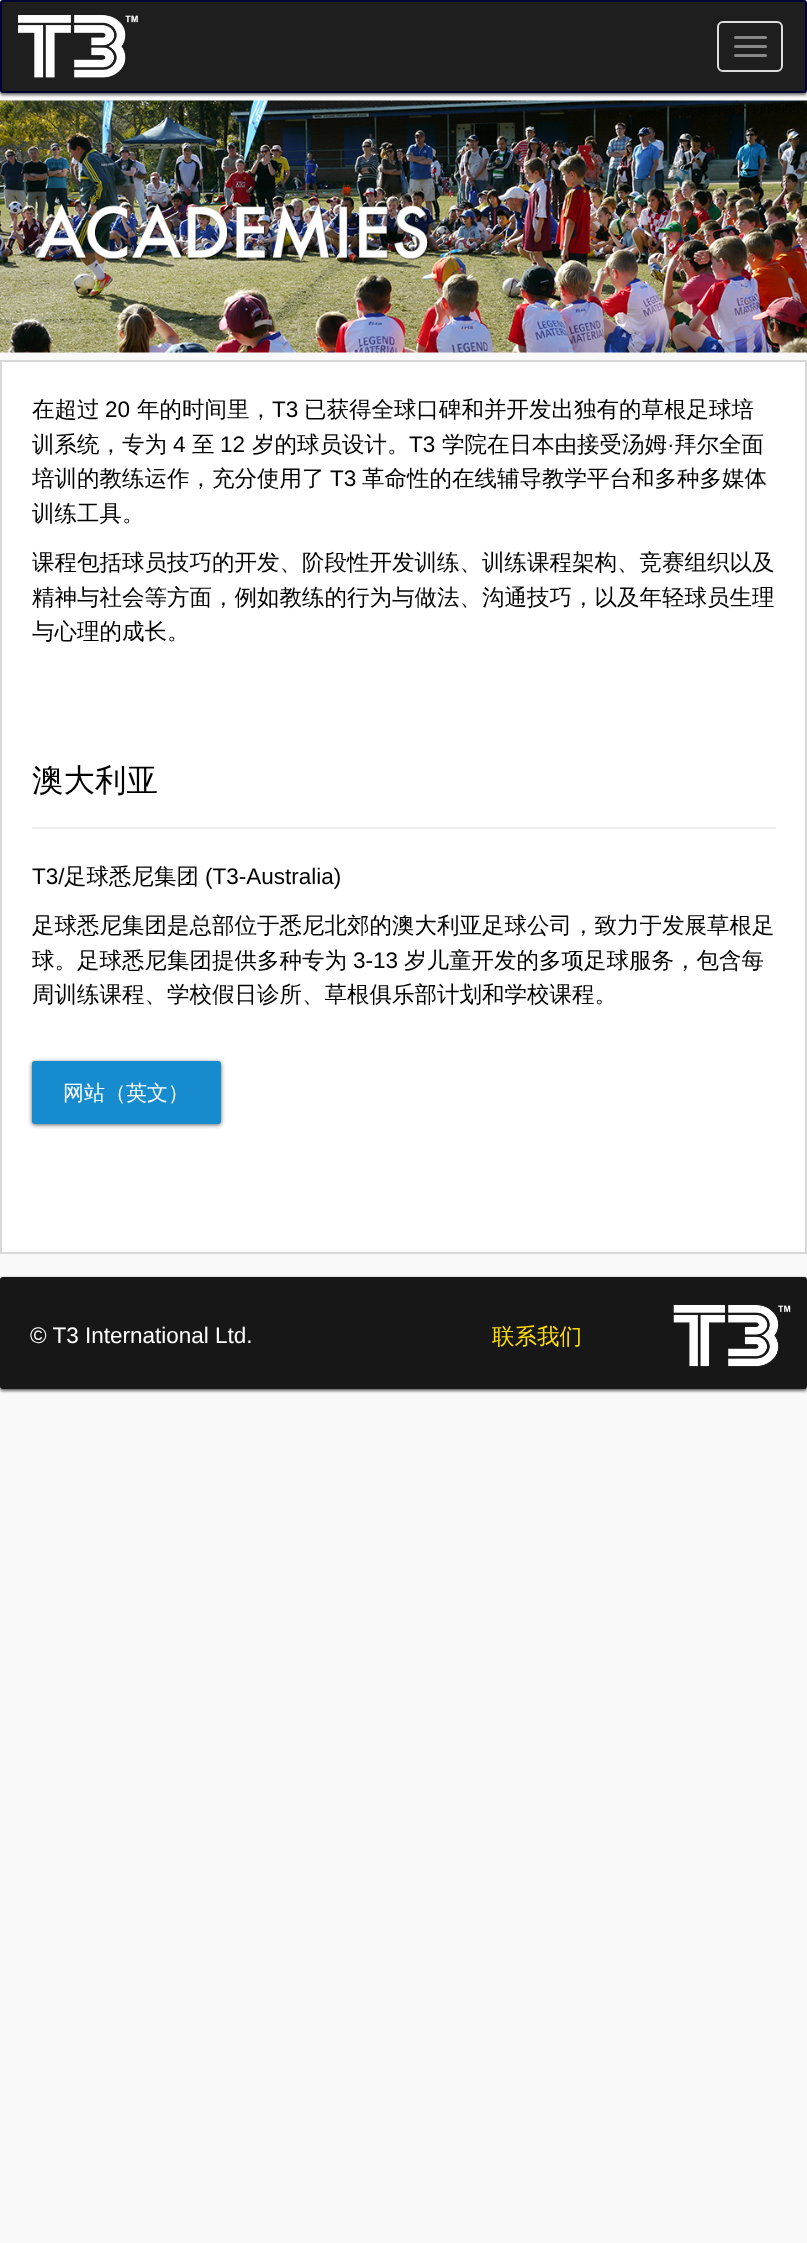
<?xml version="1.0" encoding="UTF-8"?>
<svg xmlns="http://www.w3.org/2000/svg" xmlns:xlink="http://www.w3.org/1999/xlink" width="807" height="2243">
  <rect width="100%" height="100%" fill="#f9f9f9" />
  <image x="0" y="100" width="807" height="253" xlink:href="image2.png" />
  <rect y="2" width="807" height="93" rx="3" fill="#666666" filter="blur(1.5px)" />
  <rect x="1" y="1" width="805" height="91" rx="2" fill="#1e1e1e" stroke="#030033" stroke-width="2" />
  <image x="18" y="15" width="121" height="65" xlink:href="image1.png" />
  <rect x="718" y="22" width="64" height="49" rx="5" fill="none" stroke="#dddddd" stroke-width="2" />
  <rect x="734" y="36" width="33" height="3" rx="1.5" fill="#888888" />
  <rect x="734" y="45" width="33" height="3" rx="1.5" fill="#888888" />
  <rect x="734" y="54" width="33" height="3" rx="1.5" fill="#888888" />
  <rect x="1" y="361" width="805" height="892" fill="#ffffff" stroke="#d8d8d8" stroke-width="2" />
  <rect x="32" y="827" width="744" height="2" fill="#eeeeee" />
  <rect x="32" y="1062" width="189" height="63" rx="3" fill="#666666" filter="blur(2px)" />
  <rect x="32" y="1061" width="189" height="63" rx="3" fill="#168ccf" />
  <rect y="1278" width="807" height="113" rx="3" fill="#666666" filter="blur(1.5px)" />
  <rect y="1277" width="807" height="112" rx="3" fill="#171717" />
  <image x="673" y="1304" width="119" height="64" xlink:href="image3.png" />
  <text x="32" y="417" style="font-family: WenQuanYi Zen Hei; font-size: 22.5px; font-weight: 500; fill: #000000">在超过</text>
  <text x="105" y="417" style="font-family: Liberation Sans; font-size: 22.5px; fill: #000000">20</text>
  <text x="137" y="417" style="font-family: WenQuanYi Zen Hei; font-size: 22.5px; font-weight: 500; fill: #000000">年的时间里，</text>
  <text x="272" y="417" style="font-family: Liberation Sans; font-size: 22.5px; fill: #000000">T3</text>
  <text x="304" y="417" style="font-family: WenQuanYi Zen Hei; font-size: 22.5px; font-weight: 500; fill: #000000">已获得全球口碑和并开发出独有的草根足球培</text>
  <text x="32" y="452" style="font-family: WenQuanYi Zen Hei; font-size: 22.5px; font-weight: 500; fill: #000000">训系统，专为</text>
  <text x="173" y="452" style="font-family: Liberation Sans; font-size: 22.5px; fill: #000000">4</text>
  <text x="192" y="452" style="font-family: WenQuanYi Zen Hei; font-size: 22.5px; font-weight: 500; fill: #000000">至</text>
  <text x="220" y="452" style="font-family: Liberation Sans; font-size: 22.5px; fill: #000000">12</text>
  <text x="252" y="452" style="font-family: WenQuanYi Zen Hei; font-size: 22.5px; font-weight: 500; fill: #000000">岁的球员设计。</text>
  <text x="409" y="452" style="font-family: Liberation Sans; font-size: 22.5px; fill: #000000">T3</text>
  <text x="442" y="452" style="font-family: WenQuanYi Zen Hei; font-size: 22.5px; font-weight: 500; fill: #000000">学院在日本由接受汤姆</text>
  <text x="667" y="452" style="font-family: Liberation Sans; font-size: 22.5px; fill: #000000">·</text>
  <text x="674" y="452" style="font-family: WenQuanYi Zen Hei; font-size: 22.5px; font-weight: 500; fill: #000000">拜尔全面</text>
  <text x="32" y="486" style="font-family: WenQuanYi Zen Hei; font-size: 22.5px; font-weight: 500; fill: #000000">培训的教练运作，充分使用了</text>
  <text x="330" y="486" style="font-family: Liberation Sans; font-size: 22.5px; fill: #000000">T3</text>
  <text x="362" y="486" style="font-family: WenQuanYi Zen Hei; font-size: 22.5px; font-weight: 500; fill: #000000">革命性的在线辅导教学平台和多种多媒体</text>
  <text x="32" y="521" style="font-family: WenQuanYi Zen Hei; font-size: 22.5px; font-weight: 500; fill: #000000">训练工具。</text>
  <text x="32" y="570" style="font-family: WenQuanYi Zen Hei; font-size: 22.5px; font-weight: 500; fill: #000000">课程包括球员技巧的开发、阶段性开发训练、训练课程架构、竞赛组织以及</text>
  <text x="32" y="605" style="font-family: WenQuanYi Zen Hei; font-size: 22.5px; font-weight: 500; fill: #000000">精神与社会等方面，例如教练的行为与做法、沟通技巧，以及年轻球员生理</text>
  <text x="32" y="639" style="font-family: WenQuanYi Zen Hei; font-size: 22.5px; font-weight: 500; fill: #000000">与心理的成长。</text>
  <text x="32" y="791" style="font-family: WenQuanYi Zen Hei; font-size: 31.5px; font-weight: 500; fill: #000000">澳大利亚</text>
  <text x="32" y="884" style="font-family: Liberation Sans; font-size: 22.5px; fill: #000000">T3/</text>
  <text x="64" y="884" style="font-family: WenQuanYi Zen Hei; font-size: 22.5px; font-weight: 500; fill: #000000">足球悉尼集团</text>
  <text x="205" y="884" style="font-family: Liberation Sans; font-size: 22.5px; fill: #000000">(T3-Australia)</text>
  <text x="32" y="933" style="font-family: WenQuanYi Zen Hei; font-size: 22.5px; font-weight: 500; fill: #000000">足球悉尼集团是总部位于悉尼北郊的澳大利亚足球公司，致力于发展草根足</text>
  <text x="32" y="968" style="font-family: WenQuanYi Zen Hei; font-size: 22.5px; font-weight: 500; fill: #000000">球。足球悉尼集团提供多种专为</text>
  <text x="353" y="968" style="font-family: Liberation Sans; font-size: 22.5px; fill: #000000">3-13</text>
  <text x="404" y="968" style="font-family: WenQuanYi Zen Hei; font-size: 22.5px; font-weight: 500; fill: #000000">岁儿童开发的多项足球服务，包含每</text>
  <text x="32" y="1002" style="font-family: WenQuanYi Zen Hei; font-size: 22.5px; font-weight: 500; fill: #000000">周训练课程、学校假日诊所、草根俱乐部计划和学校课程。</text>
  <text x="63" y="1100" style="font-family: WenQuanYi Zen Hei; font-size: 21px; font-weight: 500; fill: #ffffff">网站（英文）</text>
  <text x="30" y="1343" style="font-family: Liberation Sans; font-size: 22.5px; fill: #ffffff">© T3 International Ltd.</text>
  <text x="492" y="1344" style="font-family: WenQuanYi Zen Hei; font-size: 22.5px; font-weight: 500; fill: #fedd0a">联系我们</text>
</svg>
